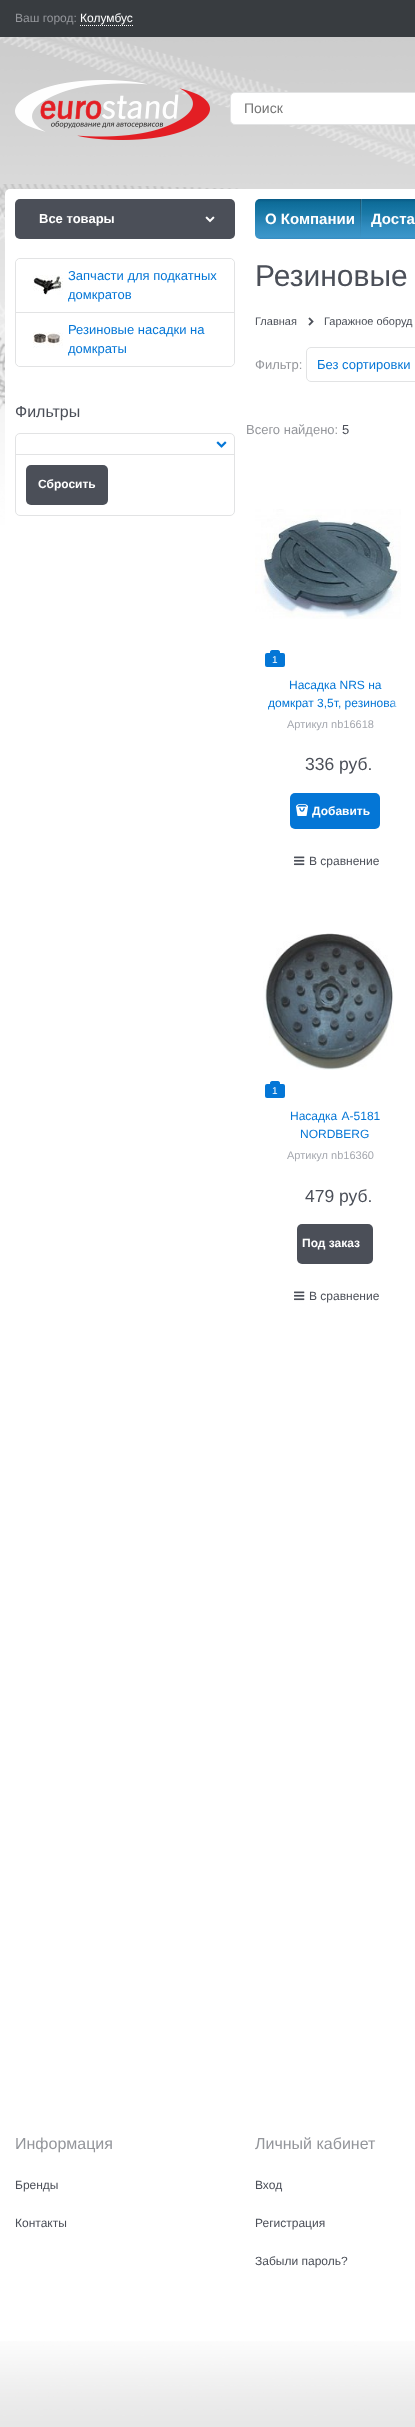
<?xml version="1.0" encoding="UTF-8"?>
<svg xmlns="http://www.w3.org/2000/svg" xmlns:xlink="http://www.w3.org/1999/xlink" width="415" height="2427">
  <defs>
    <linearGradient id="g1" gradientUnits="userSpaceOnUse" x1="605" y1="199" x2="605" y2="239"><stop offset="0" stop-color="#085986" /><stop offset="0.08" stop-color="#0e6b96" /><stop offset="0.15" stop-color="#106f9d" /><stop offset="0.38" stop-color="#1b7aa8" /><stop offset="0.46" stop-color="#237fb0" /><stop offset="0.54" stop-color="#2682b3" /><stop offset="0.69" stop-color="#308cbf" /><stop offset="0.95" stop-color="#3c96ca" /><stop offset="1" stop-color="#378cc2" /></linearGradient>
    <linearGradient id="g2" gradientUnits="userSpaceOnUse" x1="362" y1="199" x2="362" y2="239"><stop offset="0" stop-color="#ffffff" stop-opacity="0.14" /><stop offset="0.72" stop-color="#ffffff" stop-opacity="0.02" /><stop offset="1" stop-color="#ffffff" stop-opacity="0" /></linearGradient>
    <linearGradient id="g3" gradientUnits="userSpaceOnUse" x1="361" y1="199" x2="361" y2="239"><stop offset="0" stop-color="#393939" stop-opacity="0.39" /><stop offset="0.17" stop-color="#393939" stop-opacity="0.33" /><stop offset="0.61" stop-color="#393939" stop-opacity="0.12" /><stop offset="0.96" stop-color="#393939" stop-opacity="0.01" /><stop offset="0.98" stop-color="#ffffff" stop-opacity="0.01" /><stop offset="1" stop-color="#ffffff" stop-opacity="0" /></linearGradient>
    <linearGradient id="g4" gradientUnits="userSpaceOnUse" x1="391" y1="706" x2="405" y2="706"><stop offset="0" stop-color="#ffffff" stop-opacity="0" /><stop offset="0.7" stop-color="#ffffff" /></linearGradient>
  </defs>
  <rect width="100%" height="100%" fill="#ffffff" />
  <rect width="415" height="37" fill="#383c40" />
  <path d="M 80 25.5 h 53" fill="none" stroke="#ffffff" stroke-dasharray="1 1" />
  <image x="0" y="37" width="415" height="488" xlink:href="image11.png" />
  <image x="15" y="80" width="195" height="60" xlink:href="image1.png" />
  <path d="M 235 92.5 h 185.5 v 32 h -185.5 c -2.5 0 -4.5 -2 -4.5 -4.5 v -23 c 0 -2.5 2 -4.5 4.5 -4.5 z" fill="#ffffff" stroke="#e2e3e4" />
  <rect x="5" y="189" width="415" height="1181" rx="5" fill="#ffffff" />
  <rect x="15" y="199" width="220" height="40" rx="5" fill="#4b4f58" />
  <image x="205" y="216" width="10" height="7" xlink:href="image2.png" />
  <rect x="255" y="199" width="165" height="40" rx="5" fill="url(#g1)" />
  <rect x="361" y="199" width="1" height="28" fill="url(#g2)" />
  <rect x="360" y="199" width="1" height="40" fill="url(#g3)" />
  <rect x="15.5" y="258.5" width="219" height="108" rx="4.5" fill="none" stroke="#e2e3e4" />
  <rect x="16" y="312" width="218" height="1" fill="#e2e3e4" />
  <path d="M 21 259 h 208 c 3 0 5 2 5 5 v 48 h -218 v -48 c 0 -3 2 -5 5 -5 z" fill="#ffffff" />
  <image x="33" y="275" width="30" height="20" xlink:href="image3.png" />
  <path d="M 16 313 h 218 v 48 c 0 3 -2 5 -5 5 h -208 c -3 0 -5 -2 -5 -5 z" fill="#ffffff" />
  <image x="33" y="332" width="30" height="16" xlink:href="image4.png" />
  <rect x="15.5" y="433.5" width="219" height="82" rx="4.5" fill="none" stroke="#e2e3e4" />
  <image x="216" y="441" width="11" height="7" xlink:href="image5.png" />
  <rect x="16" y="454" width="218" height="1" fill="#e2e3e4" />
  <rect x="26" y="465" width="82" height="40" rx="5" fill="#4b4f58" />
  <image x="308" y="317" width="6" height="9" xlink:href="image6.png" />
  <rect x="306.5" y="347.5" width="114" height="34" rx="4.5" fill="none" stroke="#e2e3e4" />
  <image x="255" y="509" width="146" height="110" xlink:href="image7.png" />
  <rect x="265" y="653" width="20" height="14" rx="2" fill="#0476d6" />
  <path d="M 272 650 h 6 c 1 0 2 1 2 2 v 1 h -10 v -1 c 0 -1 1 -2 2 -2 z" fill="#0476d6" />
  <rect x="290" y="793" width="90" height="36" rx="5" fill="#0476d6" />
  <image x="296" y="804" width="12" height="12" xlink:href="image8.png" />
  <image x="294" y="856" width="11" height="10" xlink:href="image9.png" />
  <image x="263" y="933" width="131" height="137" xlink:href="image10.png" />
  <rect x="265" y="1084" width="20" height="14" rx="2" fill="#0476d6" />
  <path d="M 272 1081 h 6 c 1 0 2 1 2 2 v 1 h -10 v -1 c 0 -1 1 -2 2 -2 z" fill="#0476d6" />
  <rect x="297" y="1224" width="76" height="40" rx="5" fill="#4b4f58" />
  <image x="294" y="1291" width="11" height="10" xlink:href="image9.png" />
  <image x="0" y="2341" width="415" height="86" xlink:href="image12.png" />
  <text x="15" y="22" style="font-family: Liberation Sans; font-size: 12px; fill: #94969b">Ваш город:</text>
  <text x="80" y="22" style="font-family: Liberation Sans; font-size: 12px; fill: #ffffff">Колумбус</text>
  <text x="244" y="113" style="font-family: Liberation Sans; font-size: 14px; fill: #757575">Поиск</text>
  <text x="39" y="223" style="font-family: Liberation Sans; font-size: 13px; font-weight: bold; fill: #ffffff">Все товары</text>
  <text x="265" y="224" style="font-family: Liberation Sans; font-size: 15px; font-weight: bold; fill: #ffffff">О Компании</text>
  <text x="371" y="224" style="font-family: Liberation Sans; font-size: 15px; font-weight: bold; fill: #ffffff">Доста</text>
  <text x="68" y="280" style="font-family: Liberation Sans; font-size: 13px; fill: #0476d6">Запчасти для подкатных</text>
  <text x="68" y="299" style="font-family: Liberation Sans; font-size: 13px; fill: #0476d6">домкратов</text>
  <text x="68" y="334" style="font-family: Liberation Sans; font-size: 13px; fill: #0476d6">Резиновые насадки на</text>
  <text x="68" y="353" style="font-family: Liberation Sans; font-size: 13px; fill: #0476d6">домкраты</text>
  <text x="15" y="417" style="font-family: Liberation Sans; font-size: 16px; fill: #4b4f58">Фильтры</text>
  <text x="38" y="488" style="font-family: Liberation Sans; font-size: 12px; font-weight: bold; fill: #ffffff">Сбросить</text>
  <text x="255" y="286" style="font-family: Liberation Sans; font-size: 30px; fill: #4b4f58">Резиновые</text>
  <text x="255" y="325" style="font-family: Liberation Sans; font-size: 11px; fill: #4b4f58">Главная</text>
  <text x="324" y="325" style="font-family: Liberation Sans; font-size: 11px; fill: #4b4f58">Гаражное оборуд</text>
  <text x="255" y="369" style="font-family: Liberation Sans; font-size: 13px; fill: #94969b">Фильтр:</text>
  <text x="317" y="369" style="font-family: Liberation Sans; font-size: 13px; fill: #0476d6">Без сортировки</text>
  <text x="246" y="434" style="font-family: Liberation Sans; font-size: 13px; fill: #94969b">Всего найдено:</text>
  <text x="342" y="434" style="font-family: Liberation Sans; font-size: 13px; fill: #4b4f58">5</text>
  <text x="272" y="663" style="font-family: Liberation Sans; font-size: 10px; fill: #ffffff">1</text>
  <text x="289" y="689" style="font-family: Liberation Sans; font-size: 12px; fill: #0476d6">Насадка NRS на</text>
  <text x="268" y="707" style="font-family: Liberation Sans; font-size: 12px; fill: #0476d6">домкрат 3,5т, резинова</text>
  <rect x="391" y="700" width="5" height="7" fill="url(#g4)" />
  <text x="287" y="728" style="font-family: Liberation Sans; font-size: 11px; fill: #a5a8af">Артикул nb16618</text>
  <text x="305" y="770" style="font-family: Liberation Sans; font-size: 17.5px; fill: #4b4f58">336 руб.</text>
  <text x="312" y="815" style="font-family: Liberation Sans; font-size: 12px; font-weight: bold; fill: #ffffff">Добавить</text>
  <text x="309" y="865" style="font-family: Liberation Sans; font-size: 12px; fill: #4b4f58">В сравнение</text>
  <text x="272" y="1094" style="font-family: Liberation Sans; font-size: 10px; fill: #ffffff">1</text>
  <text x="290" y="1120" word-spacing="1" style="font-family: Liberation Sans; font-size: 12px; fill: #0476d6">Насадка A-5181</text>
  <text x="300" y="1138" style="font-family: Liberation Sans; font-size: 12px; fill: #0476d6">NORDBERG</text>
  <text x="287" y="1159" style="font-family: Liberation Sans; font-size: 11px; fill: #a5a8af">Артикул nb16360</text>
  <text x="305" y="1202" style="font-family: Liberation Sans; font-size: 17.5px; fill: #4b4f58">479 руб.</text>
  <text x="302" y="1247" style="font-family: Liberation Sans; font-size: 12px; font-weight: bold; fill: #ffffff">Под заказ</text>
  <text x="309" y="1300" style="font-family: Liberation Sans; font-size: 12px; fill: #4b4f58">В сравнение</text>
  <text x="15" y="2149" style="font-family: Liberation Sans; font-size: 16px; fill: #94969b">Информация</text>
  <text x="15" y="2189" style="font-family: Liberation Sans; font-size: 12px; fill: #4b4f58">Бренды</text>
  <text x="15" y="2227" style="font-family: Liberation Sans; font-size: 12px; fill: #4b4f58">Контакты</text>
  <text x="255" y="2149" style="font-family: Liberation Sans; font-size: 16px; fill: #94969b">Личный кабинет</text>
  <text x="255" y="2189" style="font-family: Liberation Sans; font-size: 12px; fill: #4b4f58">Вход</text>
  <text x="255" y="2227" style="font-family: Liberation Sans; font-size: 12px; fill: #4b4f58">Регистрация</text>
  <text x="255" y="2265" style="font-family: Liberation Sans; font-size: 12px; fill: #4b4f58">Забыли пароль?</text>
</svg>
